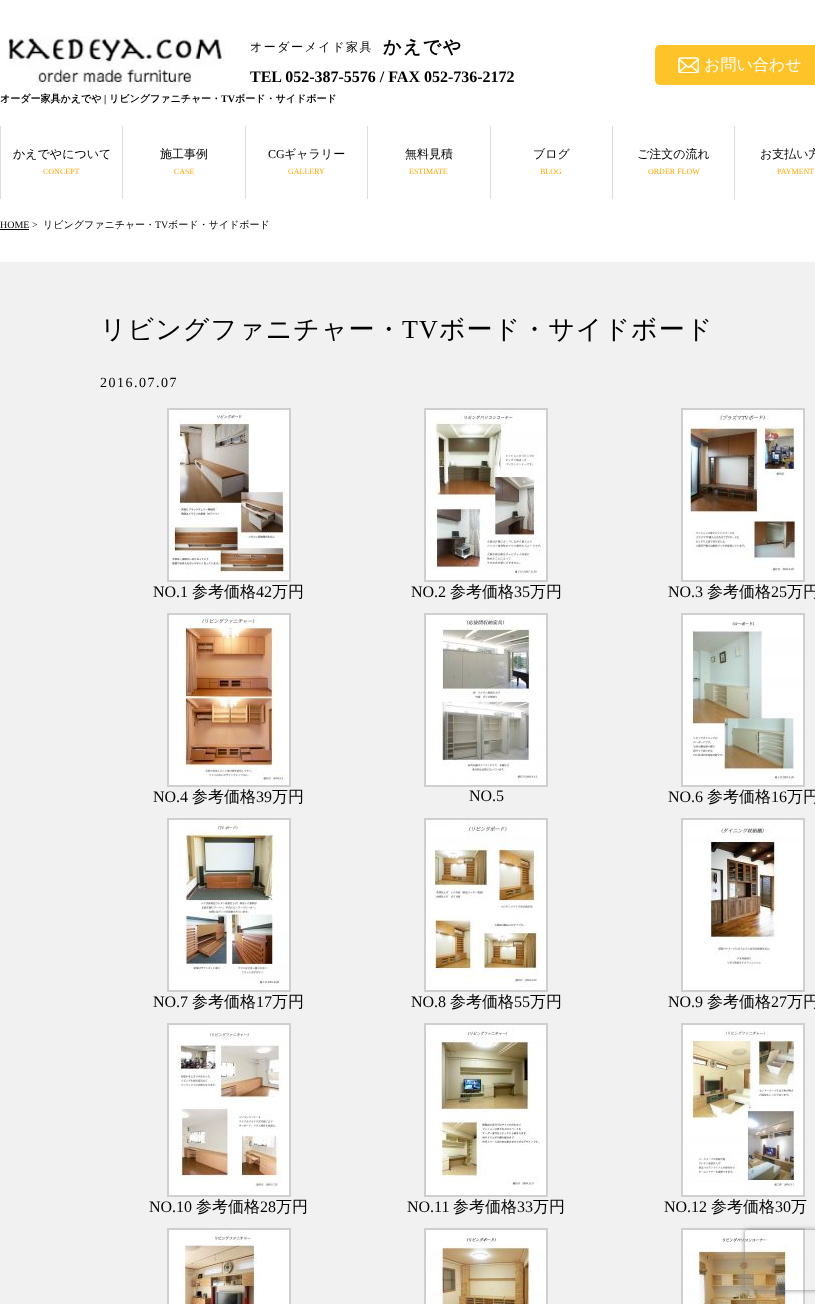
<?xml version="1.0" encoding="UTF-8"?>
<svg xmlns="http://www.w3.org/2000/svg" xmlns:xlink="http://www.w3.org/1999/xlink" width="815" height="1304">
  <defs>
    <clipPath id="clip1"><path d="M 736 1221 h 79 v 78 h -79 z m 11 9 h 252 c 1 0 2 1 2 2 v 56 c 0 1 -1 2 -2 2 h -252 c -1 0 -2 -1 -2 -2 v -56 c 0 -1 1 -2 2 -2 z" clip-rule="evenodd" /></clipPath>
  </defs>
  <rect width="100%" height="100%" fill="#ffffff" />
  <image x="7" y="37" width="218" height="50" xlink:href="image1.png" />
  <rect x="655" y="45" width="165" height="40" rx="5" fill="#ffc32a" />
  <image x="678" y="57" width="21" height="16" xlink:href="image2.png" />
  <rect y="126" width="1" height="73" fill="#dddddd" />
  <rect x="122" y="126" width="1" height="73" fill="#dddddd" />
  <rect x="245" y="126" width="1" height="73" fill="#dddddd" />
  <rect x="367" y="126" width="1" height="73" fill="#dddddd" />
  <rect x="490" y="126" width="1" height="73" fill="#dddddd" />
  <rect x="612" y="126" width="1" height="73" fill="#dddddd" />
  <rect x="734" y="126" width="1" height="73" fill="#dddddd" />
  <rect y="229" width="29" height="1" fill="#000000" />
  <rect y="262" width="815" height="1042" fill="#f1f1f1" />
  <rect x="168" y="409" width="122" height="172" fill="none" stroke="#cfcfcf" stroke-width="2" />
  <image x="169" y="410" width="120" height="170" xlink:href="image3.png" />
  <rect x="425" y="409" width="122" height="172" fill="none" stroke="#cfcfcf" stroke-width="2" />
  <image x="426" y="410" width="120" height="170" xlink:href="image4.png" />
  <rect x="682" y="409" width="122" height="172" fill="none" stroke="#cfcfcf" stroke-width="2" />
  <image x="683" y="410" width="120" height="170" xlink:href="image5.png" />
  <rect x="168" y="614" width="122" height="172" fill="none" stroke="#cfcfcf" stroke-width="2" />
  <image x="169" y="615" width="120" height="170" xlink:href="image6.png" />
  <rect x="425" y="614" width="122" height="172" fill="none" stroke="#cfcfcf" stroke-width="2" />
  <image x="426" y="615" width="120" height="170" xlink:href="image7.png" />
  <rect x="682" y="614" width="122" height="172" fill="none" stroke="#cfcfcf" stroke-width="2" />
  <image x="683" y="615" width="120" height="170" xlink:href="image8.png" />
  <rect x="168" y="819" width="122" height="172" fill="none" stroke="#cfcfcf" stroke-width="2" />
  <image x="169" y="820" width="120" height="170" xlink:href="image9.png" />
  <rect x="425" y="819" width="122" height="172" fill="none" stroke="#cfcfcf" stroke-width="2" />
  <image x="426" y="820" width="120" height="170" xlink:href="image10.png" />
  <rect x="682" y="819" width="122" height="172" fill="none" stroke="#cfcfcf" stroke-width="2" />
  <image x="683" y="820" width="120" height="170" xlink:href="image11.png" />
  <rect x="168" y="1024" width="122" height="172" fill="none" stroke="#cfcfcf" stroke-width="2" />
  <image x="169" y="1025" width="120" height="170" xlink:href="image12.png" />
  <rect x="425" y="1024" width="122" height="172" fill="none" stroke="#cfcfcf" stroke-width="2" />
  <image x="426" y="1025" width="120" height="170" xlink:href="image13.png" />
  <rect x="682" y="1024" width="122" height="172" fill="none" stroke="#cfcfcf" stroke-width="2" />
  <image x="683" y="1025" width="120" height="170" xlink:href="image14.png" />
  <rect x="168" y="1229" width="122" height="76" fill="none" stroke="#cfcfcf" stroke-width="2" />
  <image x="169" y="1230" width="120" height="74" xlink:href="image15.png" />
  <rect x="425" y="1229" width="122" height="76" fill="none" stroke="#cfcfcf" stroke-width="2" />
  <image x="426" y="1230" width="120" height="74" xlink:href="image16.png" />
  <rect x="682" y="1229" width="122" height="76" fill="none" stroke="#cfcfcf" stroke-width="2" />
  <image x="683" y="1230" width="120" height="74" xlink:href="image17.png" />
  <g clip-path="url(#clip1)">
    <rect x="745" y="1230" width="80" height="60" rx="2" fill="#808080" filter="blur(2.5px)" />
  </g>
  <text x="250" y="51" style="font-family: WenQuanYi Zen Hei; font-size: 12px; font-weight: 500; letter-spacing: 1.5px; fill: #000000">オーダーメイド家具</text>
  <text x="383" y="53" style="font-family: WenQuanYi Zen Hei; font-size: 18px; font-weight: bold; letter-spacing: 1.5px; fill: #000000">かえでや</text>
  <text x="250" y="82" style="font-family: Liberation Serif; font-size: 16px; font-weight: bold; fill: #000000">TEL 052-387-5576 / FAX 052-736-2172</text>
  <text x="704" y="70" style="font-family: WenQuanYi Zen Hei; font-size: 16px; font-weight: 500; fill: #ffffff">お問い合わせ</text>
  <text x="0" y="102" style="font-family: WenQuanYi Zen Hei; font-size: 10px; font-weight: bold; fill: #000000">オーダー家具かえでや</text>
  <text x="104" y="102" style="font-family: Liberation Serif; font-size: 10px; font-weight: bold; fill: #000000">|</text>
  <text x="109" y="102" style="font-family: WenQuanYi Zen Hei; font-size: 10px; font-weight: bold; fill: #000000">リビングファニチャー・</text>
  <text x="221" y="102" style="font-family: Liberation Serif; font-size: 10px; font-weight: bold; fill: #000000">TV</text>
  <text x="235" y="102" style="font-family: WenQuanYi Zen Hei; font-size: 10px; font-weight: bold; fill: #000000">ボード・サイドボード</text>
  <text x="13" y="158" style="font-family: WenQuanYi Zen Hei; font-size: 12px; font-weight: 500; fill: #000000">かえでやについて</text>
  <text x="43" y="174" style="font-family: Liberation Serif; font-size: 8px; fill: #ffa500">CONCEPT</text>
  <text x="160" y="158" style="font-family: WenQuanYi Zen Hei; font-size: 12px; font-weight: 500; fill: #000000">施工事例</text>
  <text x="174" y="174" style="font-family: Liberation Serif; font-size: 8px; fill: #ffa500">CASE</text>
  <text x="268" y="158" style="font-family: Liberation Serif; font-size: 12px; fill: #000000">CG</text>
  <text x="284" y="158" style="font-family: WenQuanYi Zen Hei; font-size: 12px; font-weight: 500; fill: #000000">ギャラリー</text>
  <text x="288" y="174" style="font-family: Liberation Serif; font-size: 8px; fill: #ffa500">GALLERY</text>
  <text x="405" y="158" style="font-family: WenQuanYi Zen Hei; font-size: 12px; font-weight: 500; fill: #000000">無料見積</text>
  <text x="409" y="174" style="font-family: Liberation Serif; font-size: 8px; fill: #ffa500">ESTIMATE</text>
  <text x="533" y="158" style="font-family: WenQuanYi Zen Hei; font-size: 12px; font-weight: 500; fill: #000000">ブログ</text>
  <text x="540" y="174" style="font-family: Liberation Serif; font-size: 8px; fill: #ffa500">BLOG</text>
  <text x="637" y="158" style="font-family: WenQuanYi Zen Hei; font-size: 12px; font-weight: 500; fill: #000000">ご注文の流れ</text>
  <text x="648" y="174" style="font-family: Liberation Serif; font-size: 8px; fill: #ffa500">ORDER FLOW</text>
  <text x="760" y="158" style="font-family: WenQuanYi Zen Hei; font-size: 12px; font-weight: 500; fill: #000000">お支払い方</text>
  <text x="777" y="174" style="font-family: Liberation Serif; font-size: 8px; fill: #ffa500">PAYMENT</text>
  <text x="0" y="228" style="font-family: Liberation Serif; font-size: 10px; fill: #000000">HOME &gt;</text>
  <text x="43" y="228" style="font-family: WenQuanYi Zen Hei; font-size: 10px; font-weight: 500; fill: #000000">リビングファニチャー・</text>
  <text x="155" y="228" style="font-family: Liberation Serif; font-size: 10px; fill: #000000">TV</text>
  <text x="168" y="228" style="font-family: WenQuanYi Zen Hei; font-size: 10px; font-weight: 500; fill: #000000">ボード・サイドボード</text>
  <text x="100" y="338" style="font-family: WenQuanYi Zen Hei; font-size: 26px; font-weight: 500; letter-spacing: 1px; fill: #000000">リビングファニチャー・</text>
  <text x="402" y="338" style="font-family: Liberation Serif; font-size: 26px; letter-spacing: 1px; fill: #000000">TV</text>
  <text x="439" y="338" style="font-family: WenQuanYi Zen Hei; font-size: 26px; font-weight: 500; letter-spacing: 1px; fill: #000000">ボード・サイドボード</text>
  <text x="100" y="387" style="font-family: Liberation Serif; font-size: 14px; letter-spacing: 1.5px; fill: #000000">2016.07.07</text>
  <text x="153" y="597" style="font-family: Liberation Serif; font-size: 16px; fill: #000000">NO.1</text>
  <text x="192" y="597" style="font-family: WenQuanYi Zen Hei; font-size: 16px; font-weight: 500; fill: #000000">参考価格</text>
  <text x="256" y="597" style="font-family: Liberation Serif; font-size: 16px; fill: #000000">42</text>
  <text x="272" y="597" style="font-family: WenQuanYi Zen Hei; font-size: 16px; font-weight: 500; fill: #000000">万円</text>
  <text x="411" y="597" style="font-family: Liberation Serif; font-size: 16px; fill: #000000">NO.2</text>
  <text x="450" y="597" style="font-family: WenQuanYi Zen Hei; font-size: 16px; font-weight: 500; fill: #000000">参考価格</text>
  <text x="514" y="597" style="font-family: Liberation Serif; font-size: 16px; fill: #000000">35</text>
  <text x="530" y="597" style="font-family: WenQuanYi Zen Hei; font-size: 16px; font-weight: 500; fill: #000000">万円</text>
  <text x="668" y="597" style="font-family: Liberation Serif; font-size: 16px; fill: #000000">NO.3</text>
  <text x="707" y="597" style="font-family: WenQuanYi Zen Hei; font-size: 16px; font-weight: 500; fill: #000000">参考価格</text>
  <text x="771" y="597" style="font-family: Liberation Serif; font-size: 16px; fill: #000000">25</text>
  <text x="787" y="597" style="font-family: WenQuanYi Zen Hei; font-size: 16px; font-weight: 500; fill: #000000">万円</text>
  <text x="153" y="802" style="font-family: Liberation Serif; font-size: 16px; fill: #000000">NO.4</text>
  <text x="192" y="802" style="font-family: WenQuanYi Zen Hei; font-size: 16px; font-weight: 500; fill: #000000">参考価格</text>
  <text x="256" y="802" style="font-family: Liberation Serif; font-size: 16px; fill: #000000">39</text>
  <text x="272" y="802" style="font-family: WenQuanYi Zen Hei; font-size: 16px; font-weight: 500; fill: #000000">万円</text>
  <text x="469" y="801" style="font-family: Liberation Serif; font-size: 16px; fill: #000000">NO.5</text>
  <text x="668" y="802" style="font-family: Liberation Serif; font-size: 16px; fill: #000000">NO.6</text>
  <text x="707" y="802" style="font-family: WenQuanYi Zen Hei; font-size: 16px; font-weight: 500; fill: #000000">参考価格</text>
  <text x="771" y="802" style="font-family: Liberation Serif; font-size: 16px; fill: #000000">16</text>
  <text x="787" y="802" style="font-family: WenQuanYi Zen Hei; font-size: 16px; font-weight: 500; fill: #000000">万円</text>
  <text x="153" y="1007" style="font-family: Liberation Serif; font-size: 16px; fill: #000000">NO.7</text>
  <text x="192" y="1007" style="font-family: WenQuanYi Zen Hei; font-size: 16px; font-weight: 500; fill: #000000">参考価格</text>
  <text x="256" y="1007" style="font-family: Liberation Serif; font-size: 16px; fill: #000000">17</text>
  <text x="272" y="1007" style="font-family: WenQuanYi Zen Hei; font-size: 16px; font-weight: 500; fill: #000000">万円</text>
  <text x="411" y="1007" style="font-family: Liberation Serif; font-size: 16px; fill: #000000">NO.8</text>
  <text x="450" y="1007" style="font-family: WenQuanYi Zen Hei; font-size: 16px; font-weight: 500; fill: #000000">参考価格</text>
  <text x="514" y="1007" style="font-family: Liberation Serif; font-size: 16px; fill: #000000">55</text>
  <text x="530" y="1007" style="font-family: WenQuanYi Zen Hei; font-size: 16px; font-weight: 500; fill: #000000">万円</text>
  <text x="668" y="1007" style="font-family: Liberation Serif; font-size: 16px; fill: #000000">NO.9</text>
  <text x="707" y="1007" style="font-family: WenQuanYi Zen Hei; font-size: 16px; font-weight: 500; fill: #000000">参考価格</text>
  <text x="771" y="1007" style="font-family: Liberation Serif; font-size: 16px; fill: #000000">27</text>
  <text x="787" y="1007" style="font-family: WenQuanYi Zen Hei; font-size: 16px; font-weight: 500; fill: #000000">万円</text>
  <text x="149" y="1212" style="font-family: Liberation Serif; font-size: 16px; fill: #000000">NO.10</text>
  <text x="196" y="1212" style="font-family: WenQuanYi Zen Hei; font-size: 16px; font-weight: 500; fill: #000000">参考価格</text>
  <text x="260" y="1212" style="font-family: Liberation Serif; font-size: 16px; fill: #000000">28</text>
  <text x="276" y="1212" style="font-family: WenQuanYi Zen Hei; font-size: 16px; font-weight: 500; fill: #000000">万円</text>
  <text x="407" y="1212" style="font-family: Liberation Serif; font-size: 16px; fill: #000000">NO.11</text>
  <text x="453" y="1212" style="font-family: WenQuanYi Zen Hei; font-size: 16px; font-weight: 500; fill: #000000">参考価格</text>
  <text x="517" y="1212" style="font-family: Liberation Serif; font-size: 16px; fill: #000000">33</text>
  <text x="533" y="1212" style="font-family: WenQuanYi Zen Hei; font-size: 16px; font-weight: 500; fill: #000000">万円</text>
  <text x="664" y="1212" style="font-family: Liberation Serif; font-size: 16px; fill: #000000">NO.12</text>
  <text x="711" y="1212" style="font-family: WenQuanYi Zen Hei; font-size: 16px; font-weight: 500; fill: #000000">参考価格</text>
  <text x="775" y="1212" style="font-family: Liberation Serif; font-size: 16px; fill: #000000">30</text>
  <text x="791" y="1212" style="font-family: WenQuanYi Zen Hei; font-size: 16px; font-weight: 500; fill: #000000">万</text>
</svg>
